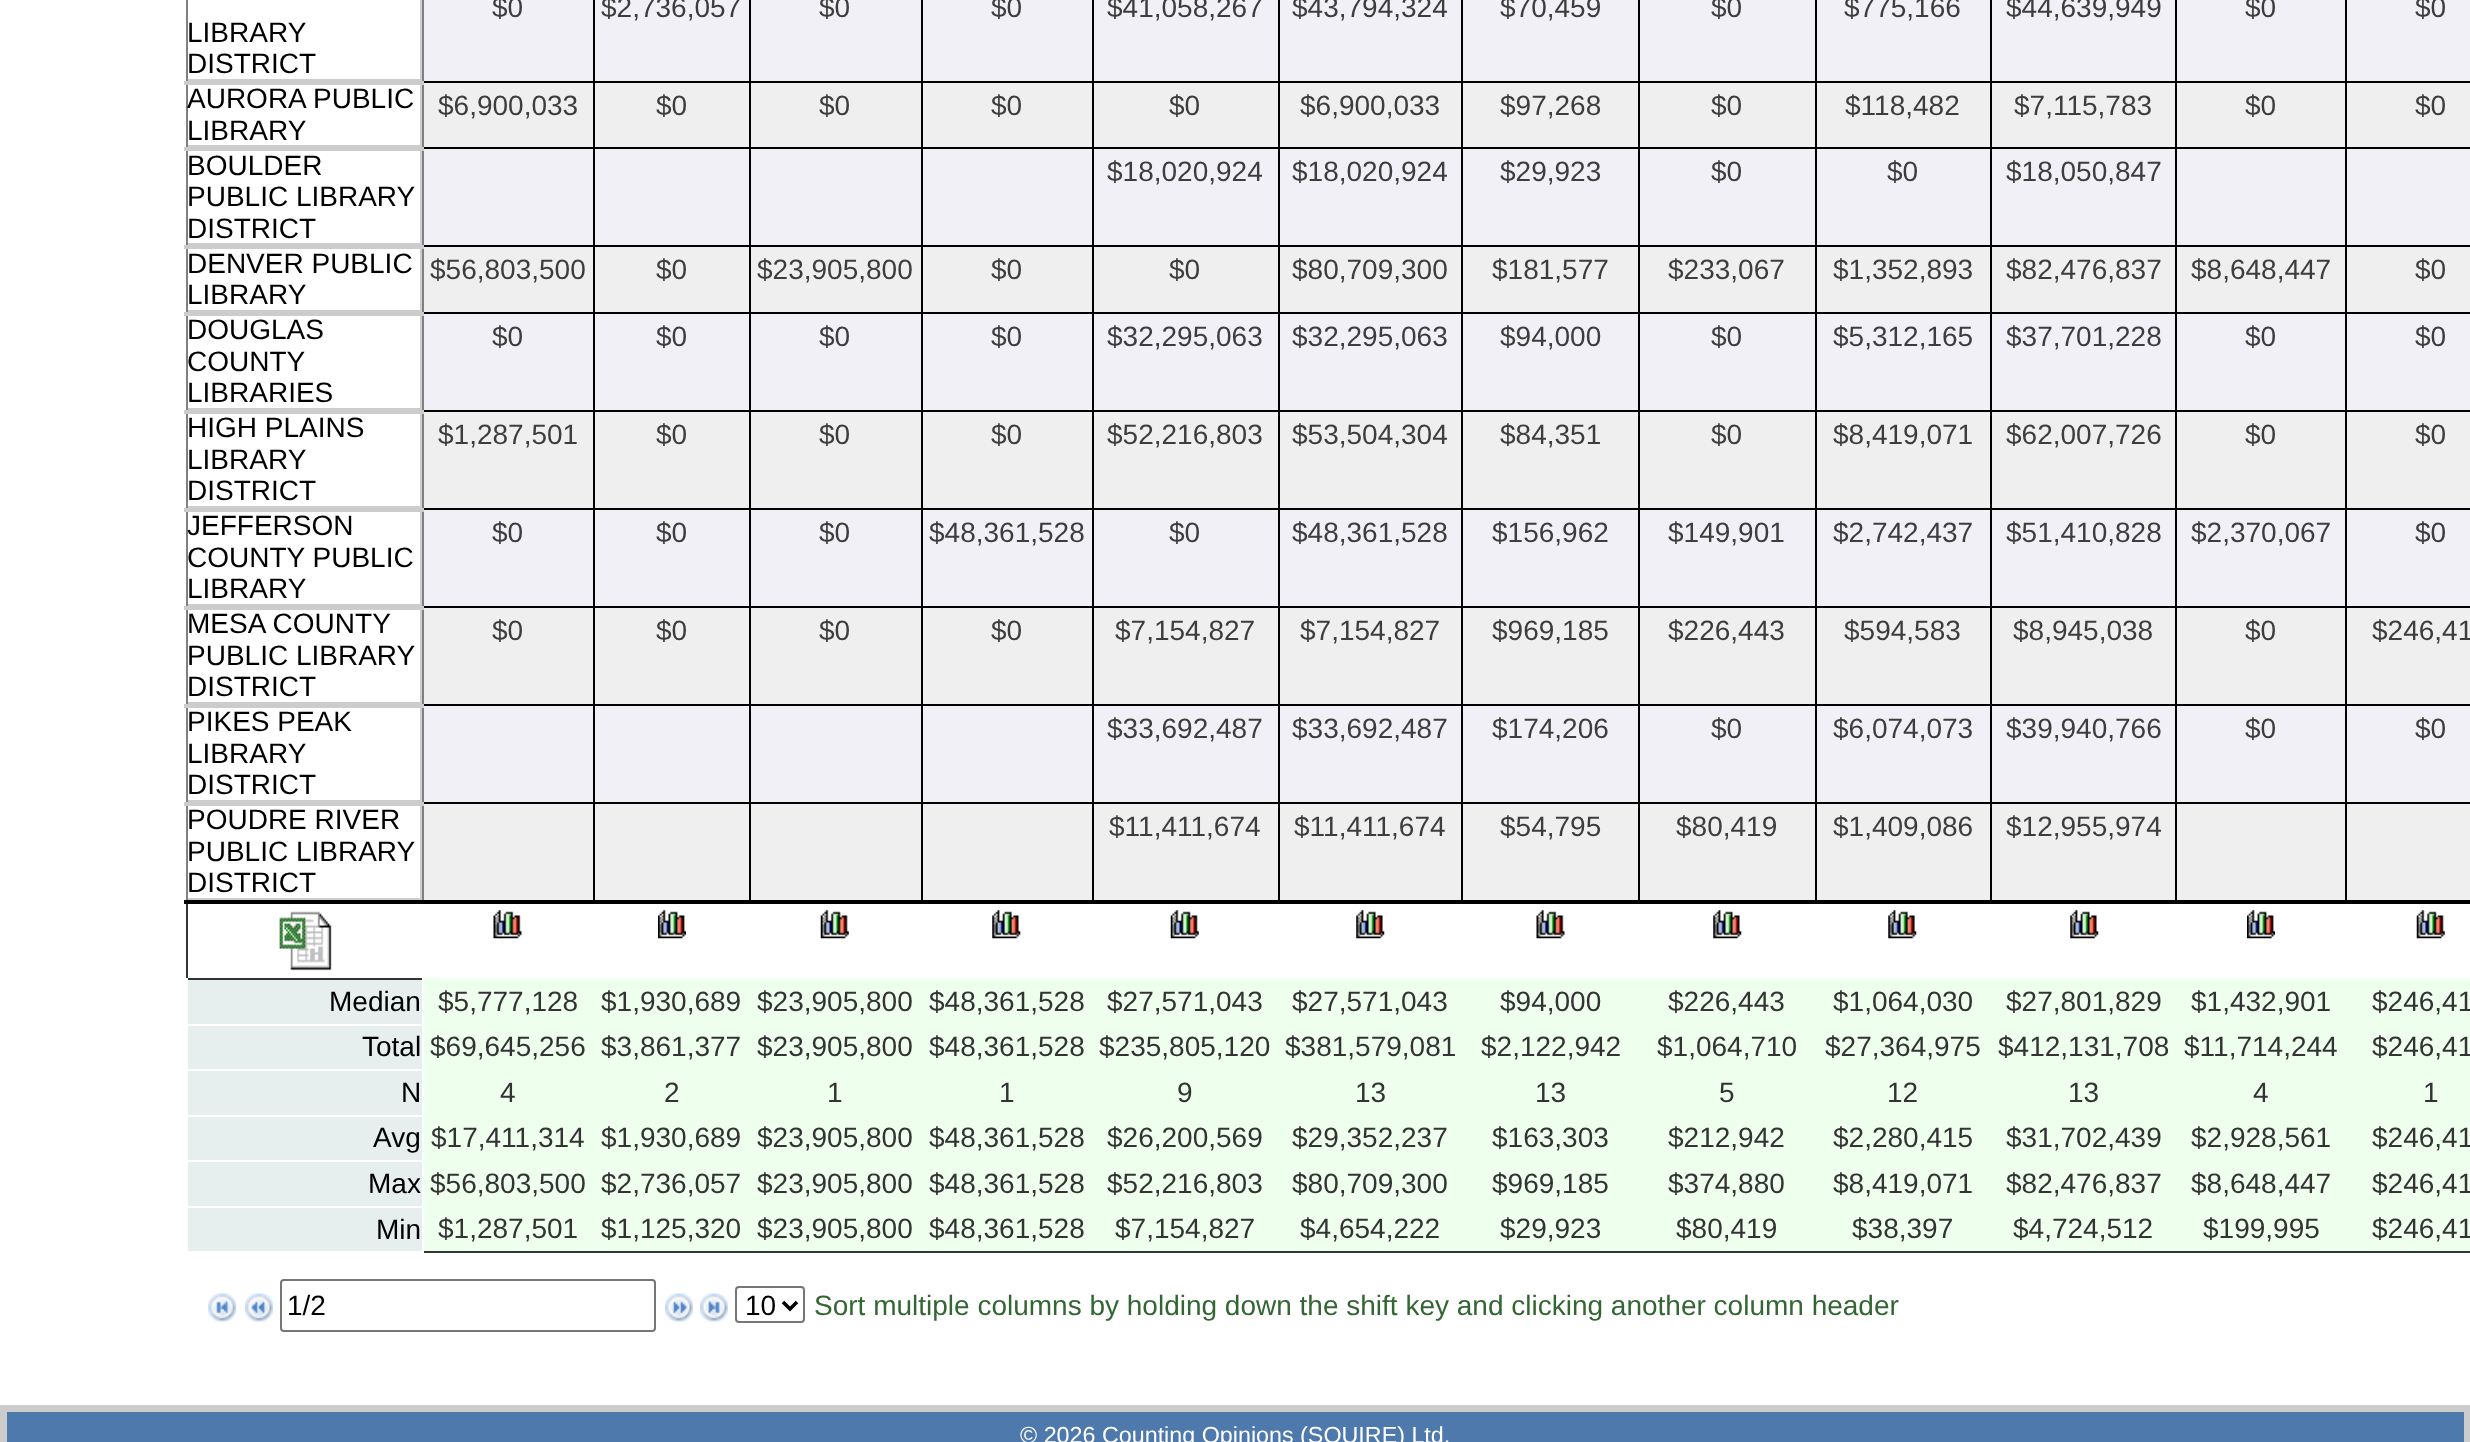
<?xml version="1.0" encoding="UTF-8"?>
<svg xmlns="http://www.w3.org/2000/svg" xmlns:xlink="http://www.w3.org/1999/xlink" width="2470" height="1442">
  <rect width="100%" height="100%" fill="#ffffff" />
  <rect x="188" width="234" height="900" fill="#cdcdcd" />
  <rect x="424" y="1251" width="2046" height="2" fill="#333333" />
  <rect x="186" y="904" width="2" height="74" fill="#333333" />
  <rect x="424" width="169" height="81" fill="#f0f0f6" />
  <rect x="2345" y="81" width="125" height="2" fill="#000000" />
  <rect x="2345" y="147" width="125" height="2" fill="#000000" />
  <rect x="2345" y="245" width="125" height="2" fill="#000000" />
  <rect x="2345" y="312" width="125" height="2" fill="#000000" />
  <rect x="2345" y="410" width="125" height="2" fill="#000000" />
  <rect x="2345" y="508" width="125" height="2" fill="#000000" />
  <rect x="2345" y="606" width="125" height="2" fill="#000000" />
  <rect x="2345" y="704" width="125" height="2" fill="#000000" />
  <rect x="2345" y="802" width="125" height="2" fill="#000000" />
  <rect x="2345" y="802" width="2" height="99" fill="#000000" />
  <rect x="2175" y="802" width="172" height="2" fill="#000000" />
  <rect x="2345" y="704" width="2" height="99" fill="#000000" />
  <rect x="2175" y="704" width="172" height="2" fill="#000000" />
  <rect x="2345" y="606" width="2" height="99" fill="#000000" />
  <rect x="2175" y="606" width="172" height="2" fill="#000000" />
  <rect x="2345" y="508" width="2" height="99" fill="#000000" />
  <rect x="2175" y="508" width="172" height="2" fill="#000000" />
  <rect x="2345" y="410" width="2" height="99" fill="#000000" />
  <rect x="2175" y="410" width="172" height="2" fill="#000000" />
  <rect x="2345" y="312" width="2" height="99" fill="#000000" />
  <rect x="2175" y="312" width="172" height="2" fill="#000000" />
  <rect x="2345" y="245" width="2" height="68" fill="#000000" />
  <rect x="2175" y="245" width="172" height="2" fill="#000000" />
  <rect x="2345" y="147" width="2" height="100" fill="#000000" />
  <rect x="2175" y="147" width="172" height="2" fill="#000000" />
  <rect x="2345" y="81" width="2" height="68" fill="#000000" />
  <rect x="2175" y="81" width="172" height="2" fill="#000000" />
  <rect x="2175" y="802" width="2" height="99" fill="#000000" />
  <rect x="1990" y="802" width="187" height="2" fill="#000000" />
  <rect x="2175" y="704" width="2" height="99" fill="#000000" />
  <rect x="1990" y="704" width="187" height="2" fill="#000000" />
  <rect x="2175" y="606" width="2" height="99" fill="#000000" />
  <rect x="1990" y="606" width="187" height="2" fill="#000000" />
  <rect x="2175" y="508" width="2" height="99" fill="#000000" />
  <rect x="1990" y="508" width="187" height="2" fill="#000000" />
  <rect x="2175" y="410" width="2" height="99" fill="#000000" />
  <rect x="1990" y="410" width="187" height="2" fill="#000000" />
  <rect x="2175" y="312" width="2" height="99" fill="#000000" />
  <rect x="1990" y="312" width="187" height="2" fill="#000000" />
  <rect x="2175" y="245" width="2" height="68" fill="#000000" />
  <rect x="1990" y="245" width="187" height="2" fill="#000000" />
  <rect x="2175" y="147" width="2" height="100" fill="#000000" />
  <rect x="1990" y="147" width="187" height="2" fill="#000000" />
  <rect x="2175" y="81" width="2" height="68" fill="#000000" />
  <rect x="1990" y="81" width="187" height="2" fill="#000000" />
  <rect x="1990" y="802" width="2" height="99" fill="#000000" />
  <rect x="1815" y="802" width="177" height="2" fill="#000000" />
  <rect x="1990" y="704" width="2" height="99" fill="#000000" />
  <rect x="1815" y="704" width="177" height="2" fill="#000000" />
  <rect x="1990" y="606" width="2" height="99" fill="#000000" />
  <rect x="1815" y="606" width="177" height="2" fill="#000000" />
  <rect x="1990" y="508" width="2" height="99" fill="#000000" />
  <rect x="1815" y="508" width="177" height="2" fill="#000000" />
  <rect x="1990" y="410" width="2" height="99" fill="#000000" />
  <rect x="1815" y="410" width="177" height="2" fill="#000000" />
  <rect x="1990" y="312" width="2" height="99" fill="#000000" />
  <rect x="1815" y="312" width="177" height="2" fill="#000000" />
  <rect x="1990" y="245" width="2" height="68" fill="#000000" />
  <rect x="1815" y="245" width="177" height="2" fill="#000000" />
  <rect x="1990" y="147" width="2" height="100" fill="#000000" />
  <rect x="1815" y="147" width="177" height="2" fill="#000000" />
  <rect x="1990" y="81" width="2" height="68" fill="#000000" />
  <rect x="1815" y="81" width="177" height="2" fill="#000000" />
  <rect x="1815" y="802" width="2" height="99" fill="#000000" />
  <rect x="1638" y="802" width="179" height="2" fill="#000000" />
  <rect x="1815" y="704" width="2" height="99" fill="#000000" />
  <rect x="1638" y="704" width="179" height="2" fill="#000000" />
  <rect x="1815" y="606" width="2" height="99" fill="#000000" />
  <rect x="1638" y="606" width="179" height="2" fill="#000000" />
  <rect x="1815" y="508" width="2" height="99" fill="#000000" />
  <rect x="1638" y="508" width="179" height="2" fill="#000000" />
  <rect x="1815" y="410" width="2" height="99" fill="#000000" />
  <rect x="1638" y="410" width="179" height="2" fill="#000000" />
  <rect x="1815" y="312" width="2" height="99" fill="#000000" />
  <rect x="1638" y="312" width="179" height="2" fill="#000000" />
  <rect x="1815" y="245" width="2" height="68" fill="#000000" />
  <rect x="1638" y="245" width="179" height="2" fill="#000000" />
  <rect x="1815" y="147" width="2" height="100" fill="#000000" />
  <rect x="1638" y="147" width="179" height="2" fill="#000000" />
  <rect x="1815" y="81" width="2" height="68" fill="#000000" />
  <rect x="1638" y="81" width="179" height="2" fill="#000000" />
  <rect x="1638" y="802" width="2" height="99" fill="#000000" />
  <rect x="1461" y="802" width="179" height="2" fill="#000000" />
  <rect x="1638" y="704" width="2" height="99" fill="#000000" />
  <rect x="1461" y="704" width="179" height="2" fill="#000000" />
  <rect x="1638" y="606" width="2" height="99" fill="#000000" />
  <rect x="1461" y="606" width="179" height="2" fill="#000000" />
  <rect x="1638" y="508" width="2" height="99" fill="#000000" />
  <rect x="1461" y="508" width="179" height="2" fill="#000000" />
  <rect x="1638" y="410" width="2" height="99" fill="#000000" />
  <rect x="1461" y="410" width="179" height="2" fill="#000000" />
  <rect x="1638" y="312" width="2" height="99" fill="#000000" />
  <rect x="1461" y="312" width="179" height="2" fill="#000000" />
  <rect x="1638" y="245" width="2" height="68" fill="#000000" />
  <rect x="1461" y="245" width="179" height="2" fill="#000000" />
  <rect x="1638" y="147" width="2" height="100" fill="#000000" />
  <rect x="1461" y="147" width="179" height="2" fill="#000000" />
  <rect x="1638" y="81" width="2" height="68" fill="#000000" />
  <rect x="1461" y="81" width="179" height="2" fill="#000000" />
  <rect x="1461" y="802" width="2" height="99" fill="#000000" />
  <rect x="1278" y="802" width="185" height="2" fill="#000000" />
  <rect x="1461" y="704" width="2" height="99" fill="#000000" />
  <rect x="1278" y="704" width="185" height="2" fill="#000000" />
  <rect x="1461" y="606" width="2" height="99" fill="#000000" />
  <rect x="1278" y="606" width="185" height="2" fill="#000000" />
  <rect x="1461" y="508" width="2" height="99" fill="#000000" />
  <rect x="1278" y="508" width="185" height="2" fill="#000000" />
  <rect x="1461" y="410" width="2" height="99" fill="#000000" />
  <rect x="1278" y="410" width="185" height="2" fill="#000000" />
  <rect x="1461" y="312" width="2" height="99" fill="#000000" />
  <rect x="1278" y="312" width="185" height="2" fill="#000000" />
  <rect x="1461" y="245" width="2" height="68" fill="#000000" />
  <rect x="1278" y="245" width="185" height="2" fill="#000000" />
  <rect x="1461" y="147" width="2" height="100" fill="#000000" />
  <rect x="1278" y="147" width="185" height="2" fill="#000000" />
  <rect x="1461" y="81" width="2" height="68" fill="#000000" />
  <rect x="1278" y="81" width="185" height="2" fill="#000000" />
  <rect x="1278" y="802" width="2" height="99" fill="#000000" />
  <rect x="1092" y="802" width="187" height="2" fill="#000000" />
  <rect x="1278" y="704" width="2" height="99" fill="#000000" />
  <rect x="1092" y="704" width="187" height="2" fill="#000000" />
  <rect x="1278" y="606" width="2" height="99" fill="#000000" />
  <rect x="1092" y="606" width="187" height="2" fill="#000000" />
  <rect x="1278" y="508" width="2" height="99" fill="#000000" />
  <rect x="1092" y="508" width="187" height="2" fill="#000000" />
  <rect x="1278" y="410" width="2" height="99" fill="#000000" />
  <rect x="1092" y="410" width="187" height="2" fill="#000000" />
  <rect x="1278" y="312" width="2" height="99" fill="#000000" />
  <rect x="1092" y="312" width="187" height="2" fill="#000000" />
  <rect x="1278" y="245" width="2" height="68" fill="#000000" />
  <rect x="1092" y="245" width="187" height="2" fill="#000000" />
  <rect x="1278" y="147" width="2" height="100" fill="#000000" />
  <rect x="1092" y="147" width="187" height="2" fill="#000000" />
  <rect x="1278" y="81" width="2" height="68" fill="#000000" />
  <rect x="1092" y="81" width="187" height="2" fill="#000000" />
  <rect x="1092" y="802" width="2" height="99" fill="#000000" />
  <rect x="921" y="802" width="173" height="2" fill="#000000" />
  <rect x="1092" y="704" width="2" height="99" fill="#000000" />
  <rect x="921" y="704" width="173" height="2" fill="#000000" />
  <rect x="1092" y="606" width="2" height="99" fill="#000000" />
  <rect x="921" y="606" width="173" height="2" fill="#000000" />
  <rect x="1092" y="508" width="2" height="99" fill="#000000" />
  <rect x="921" y="508" width="173" height="2" fill="#000000" />
  <rect x="1092" y="410" width="2" height="99" fill="#000000" />
  <rect x="921" y="410" width="173" height="2" fill="#000000" />
  <rect x="1092" y="312" width="2" height="99" fill="#000000" />
  <rect x="921" y="312" width="173" height="2" fill="#000000" />
  <rect x="1092" y="245" width="2" height="68" fill="#000000" />
  <rect x="921" y="245" width="173" height="2" fill="#000000" />
  <rect x="1092" y="147" width="2" height="100" fill="#000000" />
  <rect x="921" y="147" width="173" height="2" fill="#000000" />
  <rect x="1092" y="81" width="2" height="68" fill="#000000" />
  <rect x="921" y="81" width="173" height="2" fill="#000000" />
  <rect x="921" y="802" width="2" height="99" fill="#000000" />
  <rect x="749" y="802" width="173" height="2" fill="#000000" />
  <rect x="921" y="704" width="2" height="99" fill="#000000" />
  <rect x="749" y="704" width="173" height="2" fill="#000000" />
  <rect x="921" y="606" width="2" height="99" fill="#000000" />
  <rect x="749" y="606" width="173" height="2" fill="#000000" />
  <rect x="921" y="508" width="2" height="99" fill="#000000" />
  <rect x="749" y="508" width="173" height="2" fill="#000000" />
  <rect x="921" y="410" width="2" height="99" fill="#000000" />
  <rect x="749" y="410" width="173" height="2" fill="#000000" />
  <rect x="921" y="312" width="2" height="99" fill="#000000" />
  <rect x="749" y="312" width="173" height="2" fill="#000000" />
  <rect x="921" y="245" width="2" height="68" fill="#000000" />
  <rect x="749" y="245" width="173" height="2" fill="#000000" />
  <rect x="921" y="147" width="2" height="100" fill="#000000" />
  <rect x="749" y="147" width="173" height="2" fill="#000000" />
  <rect x="921" y="81" width="2" height="68" fill="#000000" />
  <rect x="749" y="81" width="173" height="2" fill="#000000" />
  <rect x="749" y="802" width="2" height="99" fill="#000000" />
  <rect x="593" y="802" width="158" height="2" fill="#000000" />
  <rect x="749" y="704" width="2" height="99" fill="#000000" />
  <rect x="593" y="704" width="158" height="2" fill="#000000" />
  <rect x="749" y="606" width="2" height="99" fill="#000000" />
  <rect x="593" y="606" width="158" height="2" fill="#000000" />
  <rect x="749" y="508" width="2" height="99" fill="#000000" />
  <rect x="593" y="508" width="158" height="2" fill="#000000" />
  <rect x="749" y="410" width="2" height="99" fill="#000000" />
  <rect x="593" y="410" width="158" height="2" fill="#000000" />
  <rect x="749" y="312" width="2" height="99" fill="#000000" />
  <rect x="593" y="312" width="158" height="2" fill="#000000" />
  <rect x="749" y="245" width="2" height="68" fill="#000000" />
  <rect x="593" y="245" width="158" height="2" fill="#000000" />
  <rect x="749" y="147" width="2" height="100" fill="#000000" />
  <rect x="593" y="147" width="158" height="2" fill="#000000" />
  <rect x="749" y="81" width="2" height="68" fill="#000000" />
  <rect x="593" y="81" width="158" height="2" fill="#000000" />
  <rect x="593" y="802" width="2" height="99" fill="#000000" />
  <rect x="593" y="704" width="2" height="99" fill="#000000" />
  <rect x="593" y="606" width="2" height="99" fill="#000000" />
  <rect x="593" y="508" width="2" height="99" fill="#000000" />
  <rect x="593" y="410" width="2" height="99" fill="#000000" />
  <rect x="593" y="312" width="2" height="99" fill="#000000" />
  <rect x="593" y="245" width="2" height="68" fill="#000000" />
  <rect x="593" y="147" width="2" height="100" fill="#000000" />
  <rect x="593" width="2" height="149" fill="#000000" />
  <rect x="422" y="802" width="2" height="99" fill="#808080" />
  <rect x="422" y="802" width="173" height="2" fill="#000000" />
  <rect x="422" y="704" width="2" height="99" fill="#808080" />
  <rect x="422" y="704" width="173" height="2" fill="#000000" />
  <rect x="422" y="606" width="2" height="99" fill="#808080" />
  <rect x="422" y="606" width="173" height="2" fill="#000000" />
  <rect x="422" y="508" width="2" height="99" fill="#808080" />
  <rect x="422" y="508" width="173" height="2" fill="#000000" />
  <rect x="422" y="410" width="2" height="99" fill="#808080" />
  <rect x="422" y="410" width="173" height="2" fill="#000000" />
  <rect x="422" y="312" width="2" height="99" fill="#808080" />
  <rect x="422" y="312" width="173" height="2" fill="#000000" />
  <rect x="422" y="245" width="2" height="68" fill="#808080" />
  <rect x="422" y="245" width="173" height="2" fill="#000000" />
  <rect x="422" y="147" width="2" height="100" fill="#808080" />
  <rect x="422" y="147" width="173" height="2" fill="#000000" />
  <rect x="422" y="81" width="2" height="68" fill="#808080" />
  <rect x="422" y="81" width="173" height="2" fill="#000000" />
  <rect x="595" width="154" height="81" fill="#f0f0f6" />
  <rect x="751" width="170" height="81" fill="#f0f0f6" />
  <rect x="749" width="2" height="82" fill="#000000" />
  <rect x="923" width="169" height="81" fill="#f0f0f6" />
  <rect x="921" width="2" height="82" fill="#000000" />
  <rect x="1094" width="184" height="81" fill="#f0f0f6" />
  <rect x="1092" width="2" height="82" fill="#000000" />
  <rect x="1280" width="181" height="81" fill="#f0f0f6" />
  <rect x="1278" width="2" height="82" fill="#000000" />
  <rect x="1463" width="175" height="81" fill="#f0f0f6" />
  <rect x="1461" width="2" height="82" fill="#000000" />
  <rect x="1640" width="175" height="81" fill="#f0f0f6" />
  <rect x="1638" width="2" height="82" fill="#000000" />
  <rect x="1817" width="173" height="81" fill="#f0f0f6" />
  <rect x="1815" width="2" height="82" fill="#000000" />
  <rect x="1992" width="183" height="81" fill="#f0f0f6" />
  <rect x="1990" width="2" height="82" fill="#000000" />
  <rect x="2177" width="168" height="81" fill="#f0f0f6" />
  <rect x="2175" width="2" height="82" fill="#000000" />
  <rect x="2347" width="123" height="81" fill="#f0f0f6" />
  <rect x="2345" width="2" height="82" fill="#000000" />
  <rect x="188" width="232" height="79" fill="#ffffff" />
  <rect x="422" width="2" height="82" fill="#808080" />
  <rect x="186" y="81" width="2" height="820" fill="#808080" />
  <rect x="186" width="2" height="82" fill="#808080" />
  <rect x="184" y="81" width="240" height="4" fill="#cccccc" />
  <rect x="188" y="85" width="232" height="60" fill="#ffffff" />
  <rect x="184" y="147" width="240" height="4" fill="#cccccc" />
  <rect x="424" y="83" width="169" height="64" fill="#efefef" />
  <rect x="595" y="83" width="154" height="64" fill="#efefef" />
  <rect x="751" y="83" width="170" height="64" fill="#efefef" />
  <rect x="923" y="83" width="169" height="64" fill="#efefef" />
  <rect x="1094" y="83" width="184" height="64" fill="#efefef" />
  <rect x="1280" y="83" width="181" height="64" fill="#efefef" />
  <rect x="1463" y="83" width="175" height="64" fill="#efefef" />
  <rect x="1640" y="83" width="175" height="64" fill="#efefef" />
  <rect x="1817" y="83" width="173" height="64" fill="#efefef" />
  <rect x="1992" y="83" width="183" height="64" fill="#efefef" />
  <rect x="2177" y="83" width="168" height="64" fill="#efefef" />
  <rect x="2347" y="83" width="123" height="64" fill="#efefef" />
  <rect x="188" y="151" width="232" height="92" fill="#ffffff" />
  <rect x="184" y="245" width="240" height="4" fill="#cccccc" />
  <rect x="424" y="149" width="169" height="96" fill="#f0f0f6" />
  <rect x="595" y="149" width="154" height="96" fill="#f0f0f6" />
  <rect x="751" y="149" width="170" height="96" fill="#f0f0f6" />
  <rect x="923" y="149" width="169" height="96" fill="#f0f0f6" />
  <rect x="1094" y="149" width="184" height="96" fill="#f0f0f6" />
  <rect x="1280" y="149" width="181" height="96" fill="#f0f0f6" />
  <rect x="1463" y="149" width="175" height="96" fill="#f0f0f6" />
  <rect x="1640" y="149" width="175" height="96" fill="#f0f0f6" />
  <rect x="1817" y="149" width="173" height="96" fill="#f0f0f6" />
  <rect x="1992" y="149" width="183" height="96" fill="#f0f0f6" />
  <rect x="2177" y="149" width="168" height="96" fill="#f0f0f6" />
  <rect x="2347" y="149" width="123" height="96" fill="#f0f0f6" />
  <rect x="188" y="249" width="232" height="61" fill="#ffffff" />
  <rect x="184" y="312" width="240" height="4" fill="#cccccc" />
  <rect x="424" y="247" width="169" height="65" fill="#efefef" />
  <rect x="595" y="247" width="154" height="65" fill="#efefef" />
  <rect x="751" y="247" width="170" height="65" fill="#efefef" />
  <rect x="923" y="247" width="169" height="65" fill="#efefef" />
  <rect x="1094" y="247" width="184" height="65" fill="#efefef" />
  <rect x="1280" y="247" width="181" height="65" fill="#efefef" />
  <rect x="1463" y="247" width="175" height="65" fill="#efefef" />
  <rect x="1640" y="247" width="175" height="65" fill="#efefef" />
  <rect x="1817" y="247" width="173" height="65" fill="#efefef" />
  <rect x="1992" y="247" width="183" height="65" fill="#efefef" />
  <rect x="2177" y="247" width="168" height="65" fill="#efefef" />
  <rect x="2347" y="247" width="123" height="65" fill="#efefef" />
  <rect x="188" y="316" width="232" height="92" fill="#ffffff" />
  <rect x="184" y="410" width="240" height="4" fill="#cccccc" />
  <rect x="424" y="314" width="169" height="96" fill="#f0f0f6" />
  <rect x="595" y="314" width="154" height="96" fill="#f0f0f6" />
  <rect x="751" y="314" width="170" height="96" fill="#f0f0f6" />
  <rect x="923" y="314" width="169" height="96" fill="#f0f0f6" />
  <rect x="1094" y="314" width="184" height="96" fill="#f0f0f6" />
  <rect x="1280" y="314" width="181" height="96" fill="#f0f0f6" />
  <rect x="1463" y="314" width="175" height="96" fill="#f0f0f6" />
  <rect x="1640" y="314" width="175" height="96" fill="#f0f0f6" />
  <rect x="1817" y="314" width="173" height="96" fill="#f0f0f6" />
  <rect x="1992" y="314" width="183" height="96" fill="#f0f0f6" />
  <rect x="2177" y="314" width="168" height="96" fill="#f0f0f6" />
  <rect x="2347" y="314" width="123" height="96" fill="#f0f0f6" />
  <rect x="188" y="414" width="232" height="92" fill="#ffffff" />
  <rect x="184" y="508" width="240" height="4" fill="#cccccc" />
  <rect x="424" y="412" width="169" height="96" fill="#efefef" />
  <rect x="595" y="412" width="154" height="96" fill="#efefef" />
  <rect x="751" y="412" width="170" height="96" fill="#efefef" />
  <rect x="923" y="412" width="169" height="96" fill="#efefef" />
  <rect x="1094" y="412" width="184" height="96" fill="#efefef" />
  <rect x="1280" y="412" width="181" height="96" fill="#efefef" />
  <rect x="1463" y="412" width="175" height="96" fill="#efefef" />
  <rect x="1640" y="412" width="175" height="96" fill="#efefef" />
  <rect x="1817" y="412" width="173" height="96" fill="#efefef" />
  <rect x="1992" y="412" width="183" height="96" fill="#efefef" />
  <rect x="2177" y="412" width="168" height="96" fill="#efefef" />
  <rect x="2347" y="412" width="123" height="96" fill="#efefef" />
  <rect x="188" y="512" width="232" height="92" fill="#ffffff" />
  <rect x="184" y="606" width="240" height="4" fill="#cccccc" />
  <rect x="424" y="510" width="169" height="96" fill="#f0f0f6" />
  <rect x="595" y="510" width="154" height="96" fill="#f0f0f6" />
  <rect x="751" y="510" width="170" height="96" fill="#f0f0f6" />
  <rect x="923" y="510" width="169" height="96" fill="#f0f0f6" />
  <rect x="1094" y="510" width="184" height="96" fill="#f0f0f6" />
  <rect x="1280" y="510" width="181" height="96" fill="#f0f0f6" />
  <rect x="1463" y="510" width="175" height="96" fill="#f0f0f6" />
  <rect x="1640" y="510" width="175" height="96" fill="#f0f0f6" />
  <rect x="1817" y="510" width="173" height="96" fill="#f0f0f6" />
  <rect x="1992" y="510" width="183" height="96" fill="#f0f0f6" />
  <rect x="2177" y="510" width="168" height="96" fill="#f0f0f6" />
  <rect x="2347" y="510" width="123" height="96" fill="#f0f0f6" />
  <rect x="188" y="610" width="232" height="92" fill="#ffffff" />
  <rect x="184" y="704" width="240" height="4" fill="#cccccc" />
  <rect x="424" y="608" width="169" height="96" fill="#efefef" />
  <rect x="595" y="608" width="154" height="96" fill="#efefef" />
  <rect x="751" y="608" width="170" height="96" fill="#efefef" />
  <rect x="923" y="608" width="169" height="96" fill="#efefef" />
  <rect x="1094" y="608" width="184" height="96" fill="#efefef" />
  <rect x="1280" y="608" width="181" height="96" fill="#efefef" />
  <rect x="1463" y="608" width="175" height="96" fill="#efefef" />
  <rect x="1640" y="608" width="175" height="96" fill="#efefef" />
  <rect x="1817" y="608" width="173" height="96" fill="#efefef" />
  <rect x="1992" y="608" width="183" height="96" fill="#efefef" />
  <rect x="2177" y="608" width="168" height="96" fill="#efefef" />
  <rect x="2347" y="608" width="123" height="96" fill="#efefef" />
  <rect x="188" y="708" width="232" height="92" fill="#ffffff" />
  <rect x="184" y="802" width="240" height="4" fill="#cccccc" />
  <rect x="424" y="706" width="169" height="96" fill="#f0f0f6" />
  <rect x="595" y="706" width="154" height="96" fill="#f0f0f6" />
  <rect x="751" y="706" width="170" height="96" fill="#f0f0f6" />
  <rect x="923" y="706" width="169" height="96" fill="#f0f0f6" />
  <rect x="1094" y="706" width="184" height="96" fill="#f0f0f6" />
  <rect x="1280" y="706" width="181" height="96" fill="#f0f0f6" />
  <rect x="1463" y="706" width="175" height="96" fill="#f0f0f6" />
  <rect x="1640" y="706" width="175" height="96" fill="#f0f0f6" />
  <rect x="1817" y="706" width="173" height="96" fill="#f0f0f6" />
  <rect x="1992" y="706" width="183" height="96" fill="#f0f0f6" />
  <rect x="2177" y="706" width="168" height="96" fill="#f0f0f6" />
  <rect x="2347" y="706" width="123" height="96" fill="#f0f0f6" />
  <rect x="188" y="806" width="232" height="92" fill="#ffffff" />
  <rect x="424" y="804" width="169" height="96" fill="#efefef" />
  <rect x="595" y="804" width="154" height="96" fill="#efefef" />
  <rect x="751" y="804" width="170" height="96" fill="#efefef" />
  <rect x="923" y="804" width="169" height="96" fill="#efefef" />
  <rect x="1094" y="804" width="184" height="96" fill="#efefef" />
  <rect x="1280" y="804" width="181" height="96" fill="#efefef" />
  <rect x="1463" y="804" width="175" height="96" fill="#efefef" />
  <rect x="1640" y="804" width="175" height="96" fill="#efefef" />
  <rect x="1817" y="804" width="173" height="96" fill="#efefef" />
  <rect x="1992" y="804" width="183" height="96" fill="#efefef" />
  <rect x="2177" y="804" width="168" height="96" fill="#efefef" />
  <rect x="2347" y="804" width="123" height="96" fill="#efefef" />
  <rect x="184" y="900" width="2286" height="4" fill="#000000" />
  <image x="279" y="911" width="53" height="60" xlink:href="image1.png" />
  <image x="493" y="910" width="29" height="29" xlink:href="image2.png" />
  <image x="658" y="910" width="28" height="29" xlink:href="image3.png" />
  <image x="820" y="910" width="29" height="29" xlink:href="image4.png" />
  <image x="992" y="910" width="29" height="29" xlink:href="image5.png" />
  <image x="1170" y="910" width="29" height="29" xlink:href="image6.png" />
  <image x="1356" y="910" width="29" height="29" xlink:href="image7.png" />
  <image x="1536" y="910" width="29" height="29" xlink:href="image2.png" />
  <image x="1713" y="910" width="29" height="29" xlink:href="image7.png" />
  <image x="1888" y="910" width="29" height="29" xlink:href="image8.png" />
  <image x="2070" y="910" width="29" height="29" xlink:href="image7.png" />
  <image x="2247" y="910" width="28" height="29" xlink:href="image9.png" />
  <image x="2416" y="910" width="29" height="29" xlink:href="image6.png" />
  <rect x="424" y="978" width="2046" height="273" fill="#eeffee" />
  <rect x="188" y="980" width="234" height="44" fill="#e6eeee" />
  <rect x="186" y="978" width="238" height="2" fill="#333333" />
  <rect x="422" y="978" width="2" height="2" fill="#ffffff" />
  <rect x="186" y="978" width="2" height="2" fill="#ffffff" />
  <rect x="188" y="1026" width="234" height="43" fill="#e6eeee" />
  <rect x="188" y="1071" width="234" height="44" fill="#e6eeee" />
  <rect x="188" y="1117" width="234" height="43" fill="#e6eeee" />
  <rect x="188" y="1162" width="234" height="44" fill="#e6eeee" />
  <rect x="188" y="1208" width="234" height="43" fill="#e6eeee" />
  <image x="208" y="1293" width="29" height="29" xlink:href="image10.png" />
  <image x="245" y="1293" width="28" height="29" xlink:href="image11.png" />
  <rect x="281" y="1280" width="374" height="51" rx="3" fill="none" stroke="#767676" stroke-width="2" />
  <image x="665" y="1293" width="28" height="29" xlink:href="image12.png" />
  <image x="700" y="1293" width="28" height="29" xlink:href="image13.png" />
  <rect x="736" y="1287" width="68" height="35" rx="3" fill="none" stroke="#767676" stroke-width="2" />
  <path d="M 783 1302 l 7 7 l 7 -7" fill="none" stroke="#000000" stroke-width="3.5" />
  <rect y="1405" width="2470" height="37" fill="#cccccc" />
  <rect x="7" y="1412" width="2457" height="30" fill="#4e79ad" />
  <text x="492" y="17" style="font-family: Liberation Sans; font-size: 28px; fill: #3d3d3d">$0</text>
  <text x="601" y="17" style="font-family: Liberation Sans; font-size: 28px; fill: #3d3d3d">$2,736,057</text>
  <text x="819" y="17" style="font-family: Liberation Sans; font-size: 28px; fill: #3d3d3d">$0</text>
  <text x="991" y="17" style="font-family: Liberation Sans; font-size: 28px; fill: #3d3d3d">$0</text>
  <text x="1107" y="17" style="font-family: Liberation Sans; font-size: 28px; fill: #3d3d3d">$41,058,267</text>
  <text x="1292" y="17" style="font-family: Liberation Sans; font-size: 28px; fill: #3d3d3d">$43,794,324</text>
  <text x="1500" y="17" style="font-family: Liberation Sans; font-size: 28px; fill: #3d3d3d">$70,459</text>
  <text x="1711" y="17" style="font-family: Liberation Sans; font-size: 28px; fill: #3d3d3d">$0</text>
  <text x="1844" y="17" style="font-family: Liberation Sans; font-size: 28px; fill: #3d3d3d">$775,166</text>
  <text x="2006" y="17" style="font-family: Liberation Sans; font-size: 28px; fill: #3d3d3d">$44,639,949</text>
  <text x="2245" y="17" style="font-family: Liberation Sans; font-size: 28px; fill: #3d3d3d">$0</text>
  <text x="2415" y="17" style="font-family: Liberation Sans; font-size: 28px; fill: #3d3d3d">$0</text>
  <text x="187" y="42" style="font-family: Liberation Sans; font-size: 28px; fill: #000000">LIBRARY</text>
  <text x="187" y="73" style="font-family: Liberation Sans; font-size: 28px; fill: #000000">DISTRICT</text>
  <text x="187" y="108" style="font-family: Liberation Sans; font-size: 28px; fill: #000000">AURORA PUBLIC</text>
  <text x="187" y="140" style="font-family: Liberation Sans; font-size: 28px; fill: #000000">LIBRARY</text>
  <text x="438" y="115" style="font-family: Liberation Sans; font-size: 28px; fill: #3d3d3d">$6,900,033</text>
  <text x="656" y="115" style="font-family: Liberation Sans; font-size: 28px; fill: #3d3d3d">$0</text>
  <text x="819" y="115" style="font-family: Liberation Sans; font-size: 28px; fill: #3d3d3d">$0</text>
  <text x="991" y="115" style="font-family: Liberation Sans; font-size: 28px; fill: #3d3d3d">$0</text>
  <text x="1169" y="115" style="font-family: Liberation Sans; font-size: 28px; fill: #3d3d3d">$0</text>
  <text x="1300" y="115" style="font-family: Liberation Sans; font-size: 28px; fill: #3d3d3d">$6,900,033</text>
  <text x="1500" y="115" style="font-family: Liberation Sans; font-size: 28px; fill: #3d3d3d">$97,268</text>
  <text x="1711" y="115" style="font-family: Liberation Sans; font-size: 28px; fill: #3d3d3d">$0</text>
  <text x="1845" y="115" style="font-family: Liberation Sans; font-size: 28px; fill: #3d3d3d">$118,482</text>
  <text x="2014" y="115" style="font-family: Liberation Sans; font-size: 28px; fill: #3d3d3d">$7,115,783</text>
  <text x="2245" y="115" style="font-family: Liberation Sans; font-size: 28px; fill: #3d3d3d">$0</text>
  <text x="2415" y="115" style="font-family: Liberation Sans; font-size: 28px; fill: #3d3d3d">$0</text>
  <text x="187" y="175" style="font-family: Liberation Sans; font-size: 28px; fill: #000000">BOULDER</text>
  <text x="187" y="206" style="font-family: Liberation Sans; font-size: 28px; fill: #000000">PUBLIC LIBRARY</text>
  <text x="187" y="238" style="font-family: Liberation Sans; font-size: 28px; fill: #000000">DISTRICT</text>
  <text x="1107" y="181" style="font-family: Liberation Sans; font-size: 28px; fill: #3d3d3d">$18,020,924</text>
  <text x="1292" y="181" style="font-family: Liberation Sans; font-size: 28px; fill: #3d3d3d">$18,020,924</text>
  <text x="1500" y="181" style="font-family: Liberation Sans; font-size: 28px; fill: #3d3d3d">$29,923</text>
  <text x="1711" y="181" style="font-family: Liberation Sans; font-size: 28px; fill: #3d3d3d">$0</text>
  <text x="1887" y="181" style="font-family: Liberation Sans; font-size: 28px; fill: #3d3d3d">$0</text>
  <text x="2006" y="181" style="font-family: Liberation Sans; font-size: 28px; fill: #3d3d3d">$18,050,847</text>
  <text x="187" y="273" style="font-family: Liberation Sans; font-size: 28px; fill: #000000">DENVER PUBLIC</text>
  <text x="187" y="304" style="font-family: Liberation Sans; font-size: 28px; fill: #000000">LIBRARY</text>
  <text x="430" y="279" style="font-family: Liberation Sans; font-size: 28px; fill: #3d3d3d">$56,803,500</text>
  <text x="656" y="279" style="font-family: Liberation Sans; font-size: 28px; fill: #3d3d3d">$0</text>
  <text x="757" y="279" style="font-family: Liberation Sans; font-size: 28px; fill: #3d3d3d">$23,905,800</text>
  <text x="991" y="279" style="font-family: Liberation Sans; font-size: 28px; fill: #3d3d3d">$0</text>
  <text x="1169" y="279" style="font-family: Liberation Sans; font-size: 28px; fill: #3d3d3d">$0</text>
  <text x="1292" y="279" style="font-family: Liberation Sans; font-size: 28px; fill: #3d3d3d">$80,709,300</text>
  <text x="1492" y="279" style="font-family: Liberation Sans; font-size: 28px; fill: #3d3d3d">$181,577</text>
  <text x="1668" y="279" style="font-family: Liberation Sans; font-size: 28px; fill: #3d3d3d">$233,067</text>
  <text x="1833" y="279" style="font-family: Liberation Sans; font-size: 28px; fill: #3d3d3d">$1,352,893</text>
  <text x="2006" y="279" style="font-family: Liberation Sans; font-size: 28px; fill: #3d3d3d">$82,476,837</text>
  <text x="2191" y="279" style="font-family: Liberation Sans; font-size: 28px; fill: #3d3d3d">$8,648,447</text>
  <text x="2415" y="279" style="font-family: Liberation Sans; font-size: 28px; fill: #3d3d3d">$0</text>
  <text x="187" y="339" style="font-family: Liberation Sans; font-size: 28px; fill: #000000">DOUGLAS</text>
  <text x="187" y="371" style="font-family: Liberation Sans; font-size: 28px; fill: #000000">COUNTY</text>
  <text x="187" y="402" style="font-family: Liberation Sans; font-size: 28px; fill: #000000">LIBRARIES</text>
  <text x="492" y="346" style="font-family: Liberation Sans; font-size: 28px; fill: #3d3d3d">$0</text>
  <text x="656" y="346" style="font-family: Liberation Sans; font-size: 28px; fill: #3d3d3d">$0</text>
  <text x="819" y="346" style="font-family: Liberation Sans; font-size: 28px; fill: #3d3d3d">$0</text>
  <text x="991" y="346" style="font-family: Liberation Sans; font-size: 28px; fill: #3d3d3d">$0</text>
  <text x="1107" y="346" style="font-family: Liberation Sans; font-size: 28px; fill: #3d3d3d">$32,295,063</text>
  <text x="1292" y="346" style="font-family: Liberation Sans; font-size: 28px; fill: #3d3d3d">$32,295,063</text>
  <text x="1500" y="346" style="font-family: Liberation Sans; font-size: 28px; fill: #3d3d3d">$94,000</text>
  <text x="1711" y="346" style="font-family: Liberation Sans; font-size: 28px; fill: #3d3d3d">$0</text>
  <text x="1833" y="346" style="font-family: Liberation Sans; font-size: 28px; fill: #3d3d3d">$5,312,165</text>
  <text x="2006" y="346" style="font-family: Liberation Sans; font-size: 28px; fill: #3d3d3d">$37,701,228</text>
  <text x="2245" y="346" style="font-family: Liberation Sans; font-size: 28px; fill: #3d3d3d">$0</text>
  <text x="2415" y="346" style="font-family: Liberation Sans; font-size: 28px; fill: #3d3d3d">$0</text>
  <text x="187" y="437" style="font-family: Liberation Sans; font-size: 28px; fill: #000000">HIGH PLAINS</text>
  <text x="187" y="469" style="font-family: Liberation Sans; font-size: 28px; fill: #000000">LIBRARY</text>
  <text x="187" y="500" style="font-family: Liberation Sans; font-size: 28px; fill: #000000">DISTRICT</text>
  <text x="438" y="444" style="font-family: Liberation Sans; font-size: 28px; fill: #3d3d3d">$1,287,501</text>
  <text x="656" y="444" style="font-family: Liberation Sans; font-size: 28px; fill: #3d3d3d">$0</text>
  <text x="819" y="444" style="font-family: Liberation Sans; font-size: 28px; fill: #3d3d3d">$0</text>
  <text x="991" y="444" style="font-family: Liberation Sans; font-size: 28px; fill: #3d3d3d">$0</text>
  <text x="1107" y="444" style="font-family: Liberation Sans; font-size: 28px; fill: #3d3d3d">$52,216,803</text>
  <text x="1292" y="444" style="font-family: Liberation Sans; font-size: 28px; fill: #3d3d3d">$53,504,304</text>
  <text x="1500" y="444" style="font-family: Liberation Sans; font-size: 28px; fill: #3d3d3d">$84,351</text>
  <text x="1711" y="444" style="font-family: Liberation Sans; font-size: 28px; fill: #3d3d3d">$0</text>
  <text x="1833" y="444" style="font-family: Liberation Sans; font-size: 28px; fill: #3d3d3d">$8,419,071</text>
  <text x="2006" y="444" style="font-family: Liberation Sans; font-size: 28px; fill: #3d3d3d">$62,007,726</text>
  <text x="2245" y="444" style="font-family: Liberation Sans; font-size: 28px; fill: #3d3d3d">$0</text>
  <text x="2415" y="444" style="font-family: Liberation Sans; font-size: 28px; fill: #3d3d3d">$0</text>
  <text x="187" y="535" style="font-family: Liberation Sans; font-size: 28px; fill: #000000">JEFFERSON</text>
  <text x="187" y="567" style="font-family: Liberation Sans; font-size: 28px; fill: #000000">COUNTY PUBLIC</text>
  <text x="187" y="598" style="font-family: Liberation Sans; font-size: 28px; fill: #000000">LIBRARY</text>
  <text x="492" y="542" style="font-family: Liberation Sans; font-size: 28px; fill: #3d3d3d">$0</text>
  <text x="656" y="542" style="font-family: Liberation Sans; font-size: 28px; fill: #3d3d3d">$0</text>
  <text x="819" y="542" style="font-family: Liberation Sans; font-size: 28px; fill: #3d3d3d">$0</text>
  <text x="929" y="542" style="font-family: Liberation Sans; font-size: 28px; fill: #3d3d3d">$48,361,528</text>
  <text x="1169" y="542" style="font-family: Liberation Sans; font-size: 28px; fill: #3d3d3d">$0</text>
  <text x="1292" y="542" style="font-family: Liberation Sans; font-size: 28px; fill: #3d3d3d">$48,361,528</text>
  <text x="1492" y="542" style="font-family: Liberation Sans; font-size: 28px; fill: #3d3d3d">$156,962</text>
  <text x="1668" y="542" style="font-family: Liberation Sans; font-size: 28px; fill: #3d3d3d">$149,901</text>
  <text x="1833" y="542" style="font-family: Liberation Sans; font-size: 28px; fill: #3d3d3d">$2,742,437</text>
  <text x="2006" y="542" style="font-family: Liberation Sans; font-size: 28px; fill: #3d3d3d">$51,410,828</text>
  <text x="2191" y="542" style="font-family: Liberation Sans; font-size: 28px; fill: #3d3d3d">$2,370,067</text>
  <text x="2415" y="542" style="font-family: Liberation Sans; font-size: 28px; fill: #3d3d3d">$0</text>
  <text x="187" y="633" style="font-family: Liberation Sans; font-size: 28px; fill: #000000">MESA COUNTY</text>
  <text x="187" y="665" style="font-family: Liberation Sans; font-size: 28px; fill: #000000">PUBLIC LIBRARY</text>
  <text x="187" y="696" style="font-family: Liberation Sans; font-size: 28px; fill: #000000">DISTRICT</text>
  <text x="492" y="640" style="font-family: Liberation Sans; font-size: 28px; fill: #3d3d3d">$0</text>
  <text x="656" y="640" style="font-family: Liberation Sans; font-size: 28px; fill: #3d3d3d">$0</text>
  <text x="819" y="640" style="font-family: Liberation Sans; font-size: 28px; fill: #3d3d3d">$0</text>
  <text x="991" y="640" style="font-family: Liberation Sans; font-size: 28px; fill: #3d3d3d">$0</text>
  <text x="1115" y="640" style="font-family: Liberation Sans; font-size: 28px; fill: #3d3d3d">$7,154,827</text>
  <text x="1300" y="640" style="font-family: Liberation Sans; font-size: 28px; fill: #3d3d3d">$7,154,827</text>
  <text x="1492" y="640" style="font-family: Liberation Sans; font-size: 28px; fill: #3d3d3d">$969,185</text>
  <text x="1668" y="640" style="font-family: Liberation Sans; font-size: 28px; fill: #3d3d3d">$226,443</text>
  <text x="1844" y="640" style="font-family: Liberation Sans; font-size: 28px; fill: #3d3d3d">$594,583</text>
  <text x="2013" y="640" style="font-family: Liberation Sans; font-size: 28px; fill: #3d3d3d">$8,945,038</text>
  <text x="2245" y="640" style="font-family: Liberation Sans; font-size: 28px; fill: #3d3d3d">$0</text>
  <text x="2372" y="640" style="font-family: Liberation Sans; font-size: 28px; fill: #3d3d3d">$246,41</text>
  <text x="187" y="731" style="font-family: Liberation Sans; font-size: 28px; fill: #000000">PIKES PEAK</text>
  <text x="187" y="763" style="font-family: Liberation Sans; font-size: 28px; fill: #000000">LIBRARY</text>
  <text x="187" y="794" style="font-family: Liberation Sans; font-size: 28px; fill: #000000">DISTRICT</text>
  <text x="1107" y="738" style="font-family: Liberation Sans; font-size: 28px; fill: #3d3d3d">$33,692,487</text>
  <text x="1292" y="738" style="font-family: Liberation Sans; font-size: 28px; fill: #3d3d3d">$33,692,487</text>
  <text x="1492" y="738" style="font-family: Liberation Sans; font-size: 28px; fill: #3d3d3d">$174,206</text>
  <text x="1711" y="738" style="font-family: Liberation Sans; font-size: 28px; fill: #3d3d3d">$0</text>
  <text x="1833" y="738" style="font-family: Liberation Sans; font-size: 28px; fill: #3d3d3d">$6,074,073</text>
  <text x="2006" y="738" style="font-family: Liberation Sans; font-size: 28px; fill: #3d3d3d">$39,940,766</text>
  <text x="2245" y="738" style="font-family: Liberation Sans; font-size: 28px; fill: #3d3d3d">$0</text>
  <text x="2415" y="738" style="font-family: Liberation Sans; font-size: 28px; fill: #3d3d3d">$0</text>
  <text x="187" y="829" style="font-family: Liberation Sans; font-size: 28px; fill: #000000">POUDRE RIVER</text>
  <text x="187" y="861" style="font-family: Liberation Sans; font-size: 28px; fill: #000000">PUBLIC LIBRARY</text>
  <text x="187" y="892" style="font-family: Liberation Sans; font-size: 28px; fill: #000000">DISTRICT</text>
  <text x="1109" y="836" style="font-family: Liberation Sans; font-size: 28px; fill: #3d3d3d">$11,411,674</text>
  <text x="1294" y="836" style="font-family: Liberation Sans; font-size: 28px; fill: #3d3d3d">$11,411,674</text>
  <text x="1500" y="836" style="font-family: Liberation Sans; font-size: 28px; fill: #3d3d3d">$54,795</text>
  <text x="1676" y="836" style="font-family: Liberation Sans; font-size: 28px; fill: #3d3d3d">$80,419</text>
  <text x="1833" y="836" style="font-family: Liberation Sans; font-size: 28px; fill: #3d3d3d">$1,409,086</text>
  <text x="2006" y="836" style="font-family: Liberation Sans; font-size: 28px; fill: #3d3d3d">$12,955,974</text>
  <text x="329" y="1011" style="font-family: Liberation Sans; font-size: 28px; fill: #000000">Median</text>
  <text x="438" y="1011" style="font-family: Liberation Sans; font-size: 28px; fill: #333333">$5,777,128</text>
  <text x="601" y="1011" style="font-family: Liberation Sans; font-size: 28px; fill: #333333">$1,930,689</text>
  <text x="757" y="1011" style="font-family: Liberation Sans; font-size: 28px; fill: #333333">$23,905,800</text>
  <text x="929" y="1011" style="font-family: Liberation Sans; font-size: 28px; fill: #333333">$48,361,528</text>
  <text x="1107" y="1011" style="font-family: Liberation Sans; font-size: 28px; fill: #333333">$27,571,043</text>
  <text x="1292" y="1011" style="font-family: Liberation Sans; font-size: 28px; fill: #333333">$27,571,043</text>
  <text x="1500" y="1011" style="font-family: Liberation Sans; font-size: 28px; fill: #333333">$94,000</text>
  <text x="1668" y="1011" style="font-family: Liberation Sans; font-size: 28px; fill: #333333">$226,443</text>
  <text x="1833" y="1011" style="font-family: Liberation Sans; font-size: 28px; fill: #333333">$1,064,030</text>
  <text x="2006" y="1011" style="font-family: Liberation Sans; font-size: 28px; fill: #333333">$27,801,829</text>
  <text x="2191" y="1011" style="font-family: Liberation Sans; font-size: 28px; fill: #333333">$1,432,901</text>
  <text x="2372" y="1011" style="font-family: Liberation Sans; font-size: 28px; fill: #333333">$246,41</text>
  <text x="362" y="1056" style="font-family: Liberation Sans; font-size: 28px; fill: #000000">Total</text>
  <text x="430" y="1056" style="font-family: Liberation Sans; font-size: 28px; fill: #333333">$69,645,256</text>
  <text x="601" y="1056" style="font-family: Liberation Sans; font-size: 28px; fill: #333333">$3,861,377</text>
  <text x="757" y="1056" style="font-family: Liberation Sans; font-size: 28px; fill: #333333">$23,905,800</text>
  <text x="929" y="1056" style="font-family: Liberation Sans; font-size: 28px; fill: #333333">$48,361,528</text>
  <text x="1099" y="1056" style="font-family: Liberation Sans; font-size: 28px; fill: #333333">$235,805,120</text>
  <text x="1285" y="1056" style="font-family: Liberation Sans; font-size: 28px; fill: #333333">$381,579,081</text>
  <text x="1481" y="1056" style="font-family: Liberation Sans; font-size: 28px; fill: #333333">$2,122,942</text>
  <text x="1657" y="1056" style="font-family: Liberation Sans; font-size: 28px; fill: #333333">$1,064,710</text>
  <text x="1825" y="1056" style="font-family: Liberation Sans; font-size: 28px; fill: #333333">$27,364,975</text>
  <text x="1998" y="1056" style="font-family: Liberation Sans; font-size: 28px; fill: #333333">$412,131,708</text>
  <text x="2184" y="1056" style="font-family: Liberation Sans; font-size: 28px; fill: #333333">$11,714,244</text>
  <text x="2372" y="1056" style="font-family: Liberation Sans; font-size: 28px; fill: #333333">$246,41</text>
  <text x="401" y="1102" style="font-family: Liberation Sans; font-size: 28px; fill: #000000">N</text>
  <text x="500" y="1102" style="font-family: Liberation Sans; font-size: 28px; fill: #333333">4</text>
  <text x="664" y="1102" style="font-family: Liberation Sans; font-size: 28px; fill: #333333">2</text>
  <text x="827" y="1102" style="font-family: Liberation Sans; font-size: 28px; fill: #333333">1</text>
  <text x="999" y="1102" style="font-family: Liberation Sans; font-size: 28px; fill: #333333">1</text>
  <text x="1177" y="1102" style="font-family: Liberation Sans; font-size: 28px; fill: #333333">9</text>
  <text x="1355" y="1102" style="font-family: Liberation Sans; font-size: 28px; fill: #333333">13</text>
  <text x="1535" y="1102" style="font-family: Liberation Sans; font-size: 28px; fill: #333333">13</text>
  <text x="1719" y="1102" style="font-family: Liberation Sans; font-size: 28px; fill: #333333">5</text>
  <text x="1887" y="1102" style="font-family: Liberation Sans; font-size: 28px; fill: #333333">12</text>
  <text x="2068" y="1102" style="font-family: Liberation Sans; font-size: 28px; fill: #333333">13</text>
  <text x="2253" y="1102" style="font-family: Liberation Sans; font-size: 28px; fill: #333333">4</text>
  <text x="2423" y="1102" style="font-family: Liberation Sans; font-size: 28px; fill: #333333">1</text>
  <text x="373" y="1147" style="font-family: Liberation Sans; font-size: 28px; fill: #000000">Avg</text>
  <text x="431" y="1147" style="font-family: Liberation Sans; font-size: 28px; fill: #333333">$17,411,314</text>
  <text x="601" y="1147" style="font-family: Liberation Sans; font-size: 28px; fill: #333333">$1,930,689</text>
  <text x="757" y="1147" style="font-family: Liberation Sans; font-size: 28px; fill: #333333">$23,905,800</text>
  <text x="929" y="1147" style="font-family: Liberation Sans; font-size: 28px; fill: #333333">$48,361,528</text>
  <text x="1107" y="1147" style="font-family: Liberation Sans; font-size: 28px; fill: #333333">$26,200,569</text>
  <text x="1292" y="1147" style="font-family: Liberation Sans; font-size: 28px; fill: #333333">$29,352,237</text>
  <text x="1492" y="1147" style="font-family: Liberation Sans; font-size: 28px; fill: #333333">$163,303</text>
  <text x="1668" y="1147" style="font-family: Liberation Sans; font-size: 28px; fill: #333333">$212,942</text>
  <text x="1833" y="1147" style="font-family: Liberation Sans; font-size: 28px; fill: #333333">$2,280,415</text>
  <text x="2006" y="1147" style="font-family: Liberation Sans; font-size: 28px; fill: #333333">$31,702,439</text>
  <text x="2191" y="1147" style="font-family: Liberation Sans; font-size: 28px; fill: #333333">$2,928,561</text>
  <text x="2372" y="1147" style="font-family: Liberation Sans; font-size: 28px; fill: #333333">$246,41</text>
  <text x="368" y="1193" style="font-family: Liberation Sans; font-size: 28px; fill: #000000">Max</text>
  <text x="430" y="1193" style="font-family: Liberation Sans; font-size: 28px; fill: #333333">$56,803,500</text>
  <text x="601" y="1193" style="font-family: Liberation Sans; font-size: 28px; fill: #333333">$2,736,057</text>
  <text x="757" y="1193" style="font-family: Liberation Sans; font-size: 28px; fill: #333333">$23,905,800</text>
  <text x="929" y="1193" style="font-family: Liberation Sans; font-size: 28px; fill: #333333">$48,361,528</text>
  <text x="1107" y="1193" style="font-family: Liberation Sans; font-size: 28px; fill: #333333">$52,216,803</text>
  <text x="1292" y="1193" style="font-family: Liberation Sans; font-size: 28px; fill: #333333">$80,709,300</text>
  <text x="1492" y="1193" style="font-family: Liberation Sans; font-size: 28px; fill: #333333">$969,185</text>
  <text x="1668" y="1193" style="font-family: Liberation Sans; font-size: 28px; fill: #333333">$374,880</text>
  <text x="1833" y="1193" style="font-family: Liberation Sans; font-size: 28px; fill: #333333">$8,419,071</text>
  <text x="2006" y="1193" style="font-family: Liberation Sans; font-size: 28px; fill: #333333">$82,476,837</text>
  <text x="2191" y="1193" style="font-family: Liberation Sans; font-size: 28px; fill: #333333">$8,648,447</text>
  <text x="2372" y="1193" style="font-family: Liberation Sans; font-size: 28px; fill: #333333">$246,41</text>
  <text x="376" y="1239" style="font-family: Liberation Sans; font-size: 28px; fill: #000000">Min</text>
  <text x="438" y="1238" style="font-family: Liberation Sans; font-size: 28px; fill: #333333">$1,287,501</text>
  <text x="601" y="1238" style="font-family: Liberation Sans; font-size: 28px; fill: #333333">$1,125,320</text>
  <text x="757" y="1238" style="font-family: Liberation Sans; font-size: 28px; fill: #333333">$23,905,800</text>
  <text x="929" y="1238" style="font-family: Liberation Sans; font-size: 28px; fill: #333333">$48,361,528</text>
  <text x="1115" y="1238" style="font-family: Liberation Sans; font-size: 28px; fill: #333333">$7,154,827</text>
  <text x="1300" y="1238" style="font-family: Liberation Sans; font-size: 28px; fill: #333333">$4,654,222</text>
  <text x="1500" y="1238" style="font-family: Liberation Sans; font-size: 28px; fill: #333333">$29,923</text>
  <text x="1676" y="1238" style="font-family: Liberation Sans; font-size: 28px; fill: #333333">$80,419</text>
  <text x="1852" y="1238" style="font-family: Liberation Sans; font-size: 28px; fill: #333333">$38,397</text>
  <text x="2013" y="1238" style="font-family: Liberation Sans; font-size: 28px; fill: #333333">$4,724,512</text>
  <text x="2203" y="1238" style="font-family: Liberation Sans; font-size: 28px; fill: #333333">$199,995</text>
  <text x="2372" y="1238" style="font-family: Liberation Sans; font-size: 28px; fill: #333333">$246,41</text>
  <text x="287" y="1315" style="font-family: Liberation Sans; font-size: 28px; fill: #000000">1/2</text>
  <text x="745" y="1315" style="font-family: Liberation Sans; font-size: 28px; fill: #000000">10</text>
  <text x="814" y="1315" style="font-family: Liberation Sans; font-size: 28px; fill: #336633">Sort multiple columns by holding down the shift key and clicking another column header</text>
  <text x="1020" y="1443" style="font-family: Liberation Sans; font-size: 23.3px; fill: #ffffff">© 2026 Counting Opinions (SQUIRE) Ltd.</text>
</svg>
